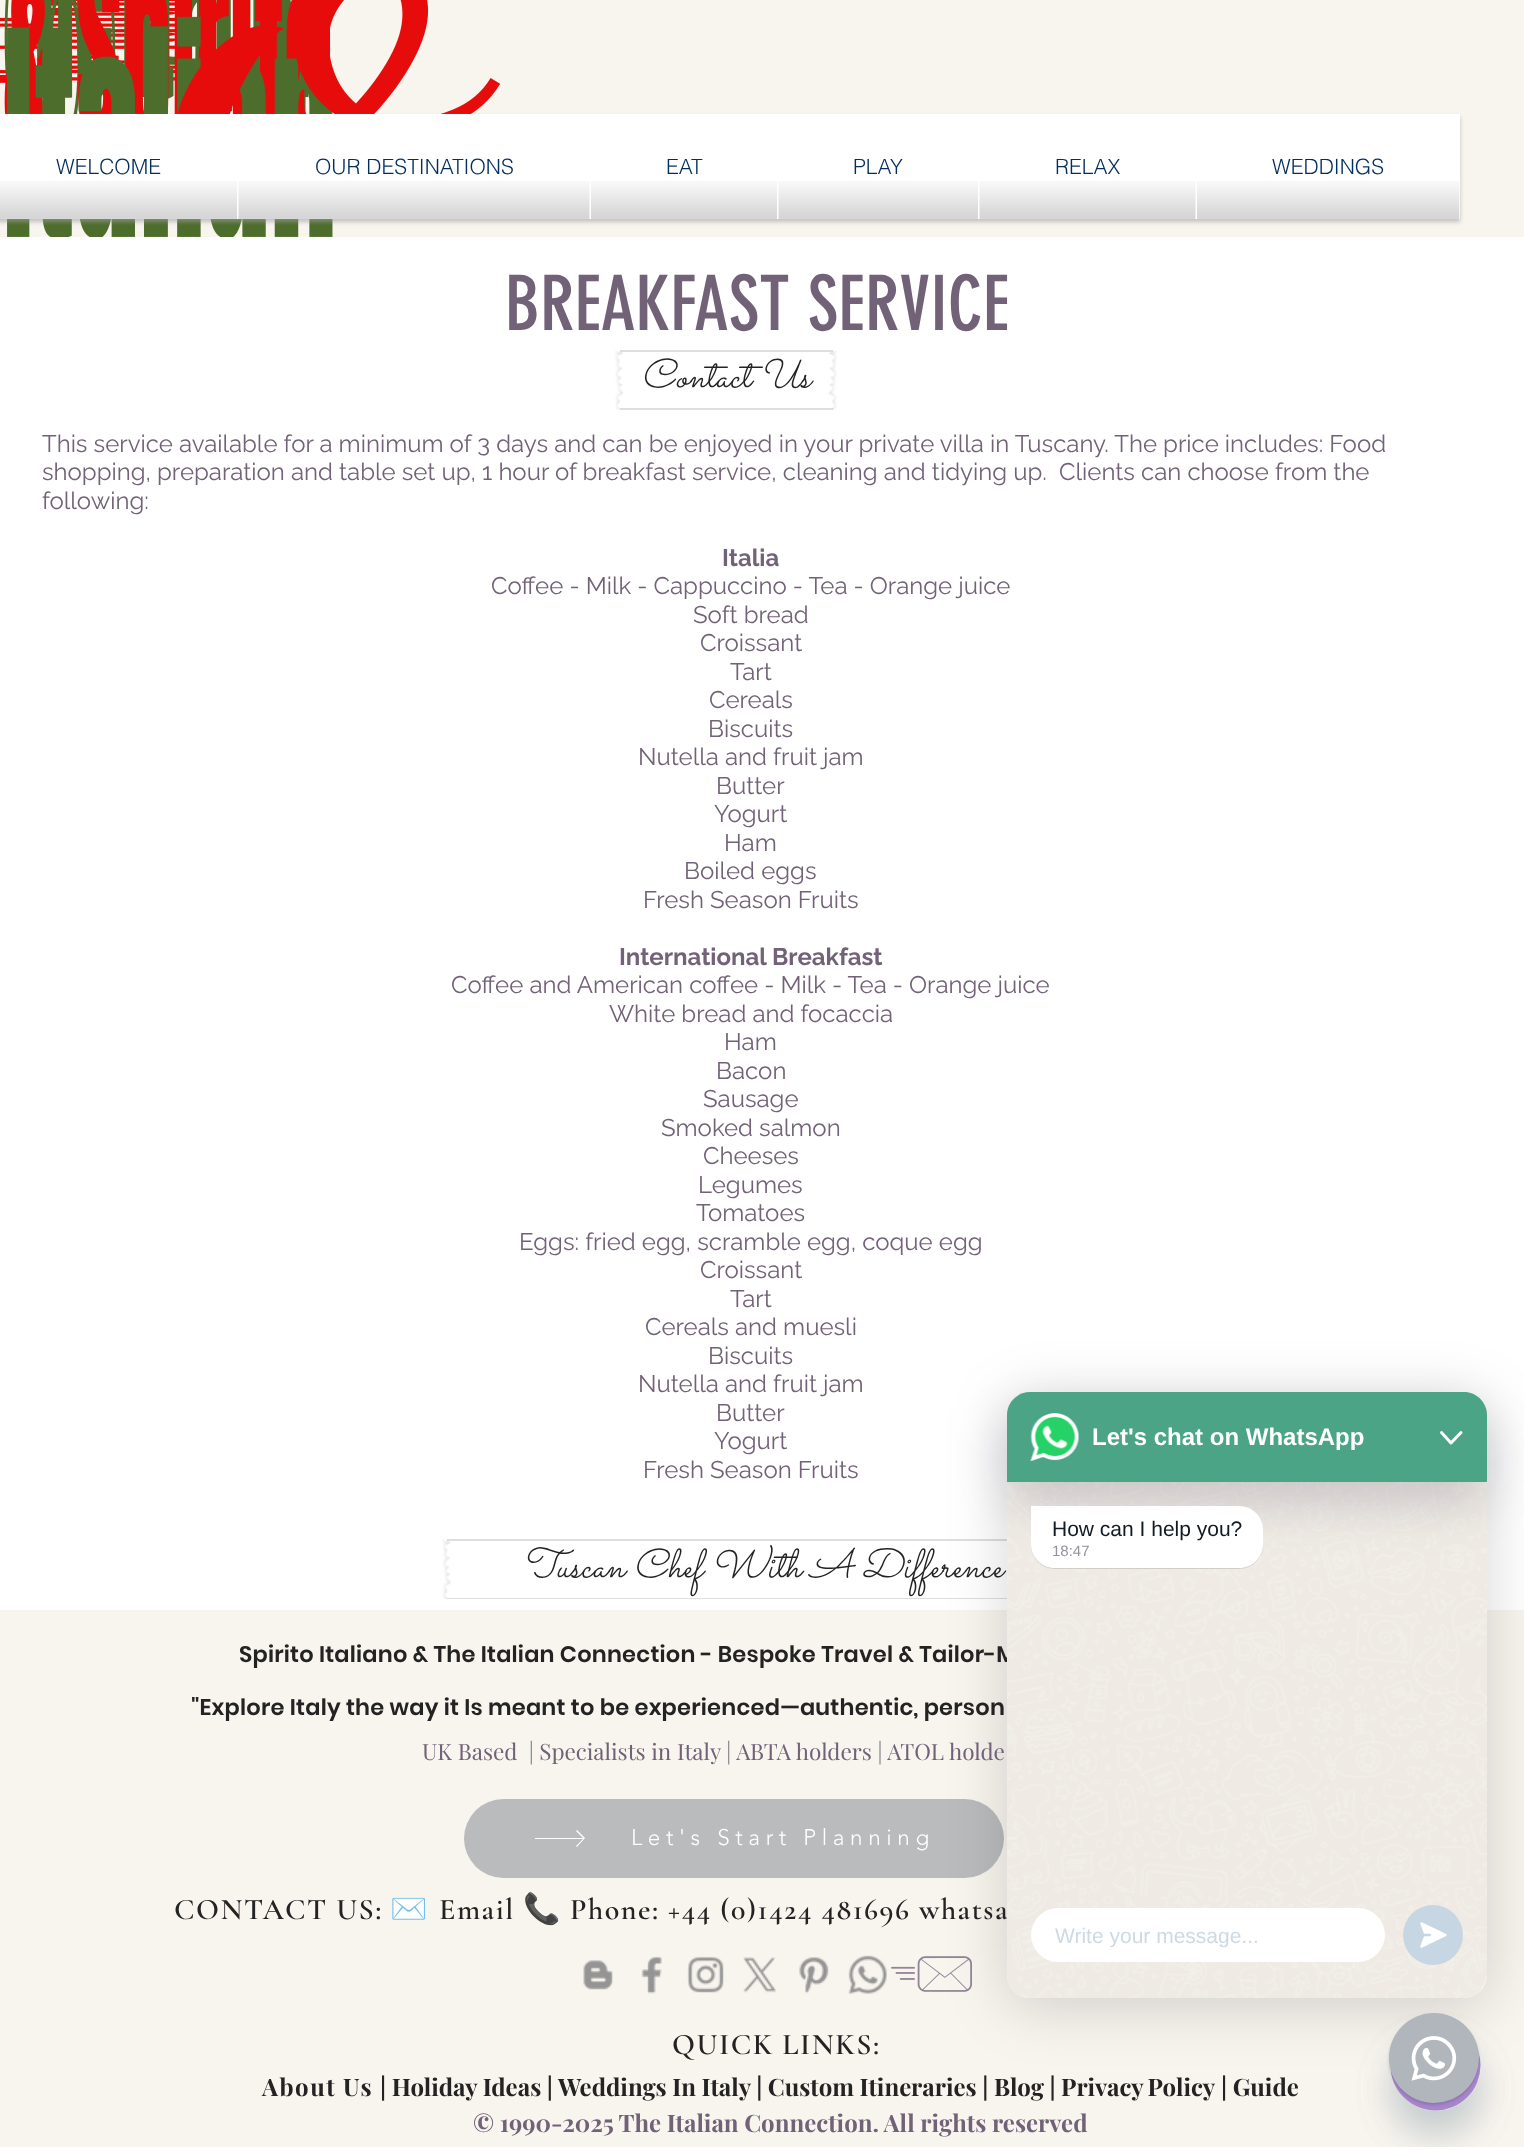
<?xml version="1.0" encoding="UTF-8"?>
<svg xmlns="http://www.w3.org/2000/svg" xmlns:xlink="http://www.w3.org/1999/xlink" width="1524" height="2147">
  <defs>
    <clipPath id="clip1"><rect x="1391" y="2021" width="90" height="90" /></clipPath>
    <clipPath id="clip2"><path d="M 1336 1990 h 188 v 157 h -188 z m 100 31 c 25 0 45 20 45 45 c 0 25 -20 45 -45 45 c -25 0 -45 -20 -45 -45 c 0 -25 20 -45 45 -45 z" clip-rule="evenodd" /></clipPath>
    <clipPath id="clip3"><rect x="1055" y="1923" width="306" height="24" /></clipPath>
  </defs>
  <rect width="100%" height="100%" fill="#ffffff" />
  <rect width="1524" height="237" fill="#f8f5ef" />
  <image x="0" y="0" width="501" height="237" xlink:href="image1.png" />
  <rect x="-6" y="117" width="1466" height="105" fill="#a29e9e" fill-opacity="0.6" filter="blur(2px)" />
  <rect y="114" width="1460" height="105" fill="#ffffff" />
  <rect x="57" y="158" width="103" height="6" fill="#ffffff" fill-opacity="0.03" />
  <image x="0" y="181" width="237" height="38" xlink:href="image2.png" />
  <rect x="316" y="158" width="196" height="6" fill="#ffffff" fill-opacity="0.03" />
  <image x="238" y="181" width="352" height="38" xlink:href="image3.png" />
  <image x="591" y="181" width="186" height="38" xlink:href="image4.png" />
  <image x="778" y="181" width="200" height="38" xlink:href="image5.png" />
  <image x="979" y="181" width="217" height="38" xlink:href="image6.png" />
  <rect x="1273" y="158" width="110" height="6" fill="#ffffff" fill-opacity="0.03" />
  <image x="1197" y="181" width="263" height="38" xlink:href="image7.png" />
  <image x="615" y="350" width="9" height="60" xlink:href="image8.png" />
  <rect x="620" y="350" width="213" height="2" fill="#000000" fill-opacity="0.13" />
  <rect x="620" y="408" width="213" height="2" fill="#000000" fill-opacity="0.13" />
  <image x="828" y="350" width="9" height="60" xlink:href="image9.png" />
  <image x="442" y="1539" width="9" height="60" xlink:href="image10.png" />
  <rect x="447" y="1539" width="560" height="2" fill="#000000" fill-opacity="0.13" />
  <rect x="447" y="1598" width="560" height="1" fill="#000000" fill-opacity="0.13" />
  <rect y="1610" width="1524" height="537" fill="#f8f5ef" />
  <rect x="464" y="1799" width="540" height="79" rx="39.5" fill="#b9bbbd" />
  <path d="M 577 1830 l -1 1 l 7 7 h -48 v 1 h 48 l -7 7 l 1 1 l 8 -9 z" fill="#ffffff" />
  <image x="583" y="1960" width="30" height="30" xlink:href="image11.png" />
  <image x="641" y="1956" width="21" height="38" xlink:href="image12.png" />
  <image x="687" y="1956" width="37" height="37" xlink:href="image13.png" />
  <image x="743" y="1957" width="33" height="36" xlink:href="image14.png" />
  <image x="799" y="1957" width="30" height="37" xlink:href="image15.png" />
  <image x="848" y="1955" width="39" height="39" xlink:href="image16.png" />
  <image x="891" y="1956" width="81" height="36" xlink:href="image17.png" />
  <rect x="1391" y="2045" width="90" height="90" rx="45" fill="#49687e" fill-opacity="0.16" filter="blur(18px)" />
  <g clip-path="url(#clip1)">
    <circle cx="1435.5" cy="2065.5" r="45" fill="#a886cd" />
  </g>
  <rect x="1007" y="1400" width="480" height="606" rx="23" fill="#000000" fill-opacity="0.16" filter="blur(30px)" />
  <g clip-path="url(#clip2)">
    <rect x="1391" y="2045" width="90" height="90" rx="45" fill="#49687e" fill-opacity="0.16" filter="blur(18px)" />
  </g>
  <rect x="1389" y="2015" width="90" height="90" rx="45" fill="#000000" fill-opacity="0.15" filter="blur(1.5px)" />
  <circle cx="1434" cy="2058" r="45" fill="#b0b6bb" />
  <image x="1411" y="2036" width="46" height="45" xlink:href="image21.png" />
  <text x="56" y="174" style="font-family: helvetica; font-size: 21px; font-weight: 300; fill: #002e5d">WELCOME</text>
  <text x="315" y="174" style="font-family: helvetica; font-size: 21px; font-weight: 300; fill: #002e5d">OUR DESTINATIONS</text>
  <text x="666" y="174" style="font-family: helvetica; font-size: 21px; font-weight: 300; fill: #002e5d">EAT</text>
  <text x="853" y="174" style="font-family: helvetica; font-size: 21px; font-weight: 300; fill: #002e5d">PLAY</text>
  <text x="1055" y="174" style="font-family: helvetica; font-size: 21px; font-weight: 300; fill: #002e5d">RELAX</text>
  <text x="1272" y="174" style="font-family: helvetica; font-size: 21px; font-weight: 300; fill: #002e5d">WEDDINGS</text>
  <text x="505" y="330" style="font-family: 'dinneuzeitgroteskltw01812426'; font-size: 75px; fill: #726277">BREAKFAST SERVICE</text>
  <text x="641" y="387" style="font-family: Sacramento; font-size: 40.5px; font-style: italic; fill: #232323">Contact Us</text>
  <text x="42" y="452" style="font-family: Raleway; font-size: 24px; fill: #726277">This service available for a minimum of 3 days and can be enjoyed in your private villa in Tuscany. The price includes: Food</text>
  <text x="42" y="480" style="font-family: Raleway; font-size: 24px; fill: #726277" xml:space="preserve">shopping, preparation and table set up, 1 hour of breakfast service, cleaning and tidying up.  Clients can choose from the</text>
  <text x="42" y="509" style="font-family: Raleway; font-size: 24px; fill: #726277">following:</text>
  <text x="722" y="566" style="font-family: Raleway; font-size: 24px; font-weight: bold; fill: #726277">Italia</text>
  <text x="491" y="594" style="font-family: Raleway; font-size: 24px; fill: #726277">Coffee - Milk - Cappuccino - Tea - Orange juice</text>
  <text x="693" y="623" style="font-family: Raleway; font-size: 24px; fill: #726277">Soft bread</text>
  <text x="700" y="651" style="font-family: Raleway; font-size: 24px; fill: #726277">Croissant</text>
  <text x="730" y="680" style="font-family: Raleway; font-size: 24px; fill: #726277">Tart</text>
  <text x="709" y="708" style="font-family: Raleway; font-size: 24px; fill: #726277">Cereals</text>
  <text x="708" y="737" style="font-family: Raleway; font-size: 24px; fill: #726277">Biscuits</text>
  <text x="638" y="765" style="font-family: Raleway; font-size: 24px; fill: #726277">Nutella and fruit jam</text>
  <text x="716" y="794" style="font-family: Raleway; font-size: 24px; fill: #726277">Butter</text>
  <text x="714" y="822" style="font-family: Raleway; font-size: 24px; fill: #726277">Yogurt</text>
  <text x="724" y="851" style="font-family: Raleway; font-size: 24px; fill: #726277">Ham</text>
  <text x="684" y="879" style="font-family: Raleway; font-size: 24px; fill: #726277">Boiled eggs</text>
  <text x="643" y="908" style="font-family: Raleway; font-size: 24px; fill: #726277">Fresh Season Fruits</text>
  <text x="619" y="965" style="font-family: Raleway; font-size: 24px; font-weight: bold; fill: #726277">International Breakfast</text>
  <text x="451" y="993" style="font-family: Raleway; font-size: 24px; fill: #726277">Coffee and American coffee - Milk - Tea - Orange juice</text>
  <text x="609" y="1022" style="font-family: Raleway; font-size: 24px; fill: #726277">White bread and focaccia</text>
  <text x="724" y="1050" style="font-family: Raleway; font-size: 24px; fill: #726277">Ham</text>
  <text x="716" y="1079" style="font-family: Raleway; font-size: 24px; fill: #726277">Bacon</text>
  <text x="703" y="1107" style="font-family: Raleway; font-size: 24px; fill: #726277">Sausage</text>
  <text x="661" y="1136" style="font-family: Raleway; font-size: 24px; fill: #726277">Smoked salmon</text>
  <text x="703" y="1164" style="font-family: Raleway; font-size: 24px; fill: #726277">Cheeses</text>
  <text x="698" y="1193" style="font-family: Raleway; font-size: 24px; fill: #726277">Legumes</text>
  <text x="696" y="1221" style="font-family: Raleway; font-size: 24px; fill: #726277">Tomatoes</text>
  <text x="519" y="1250" style="font-family: Raleway; font-size: 24px; fill: #726277">Eggs: fried egg, scramble egg, coque egg</text>
  <text x="700" y="1278" style="font-family: Raleway; font-size: 24px; fill: #726277">Croissant</text>
  <text x="730" y="1307" style="font-family: Raleway; font-size: 24px; fill: #726277">Tart</text>
  <text x="645" y="1335" style="font-family: Raleway; font-size: 24px; fill: #726277">Cereals and muesli</text>
  <text x="708" y="1364" style="font-family: Raleway; font-size: 24px; fill: #726277">Biscuits</text>
  <text x="638" y="1392" style="font-family: Raleway; font-size: 24px; fill: #726277">Nutella and fruit jam</text>
  <text x="716" y="1421" style="font-family: Raleway; font-size: 24px; fill: #726277">Butter</text>
  <text x="714" y="1449" style="font-family: Raleway; font-size: 24px; fill: #726277">Yogurt</text>
  <text x="643" y="1478" style="font-family: Raleway; font-size: 24px; fill: #726277">Fresh Season Fruits</text>
  <text x="522" y="1577" style="font-family: Sacramento; font-size: 40.5px; font-style: italic; fill: #232323">Tuscan Chef With A Difference</text>
  <text x="239" y="1662" style="font-family: Poppins; font-size: 22.5px; font-weight: 600; letter-spacing: 0.22px; fill: #232323">Spirito Italiano &amp; The Italian Connection - Bespoke Travel &amp; Tailor-M</text>
  <text x="191" y="1715" style="font-family: Poppins; font-size: 22.5px; font-weight: 600; letter-spacing: 0.22px; fill: #232323">"Explore Italy the way it Is meant to be experienced—authentic, person</text>
  <text x="422" y="1760" style="font-family: Playfair Display; font-size: 22.5px; fill: #726277" xml:space="preserve">UK Based  | Specialists in Italy | ABTA holders | ATOL holde</text>
  <text x="631" y="1845" style="font-family: 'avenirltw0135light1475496'; font-size: 22.5px; font-weight: 300; letter-spacing: 5.6px; fill: #ffffff">Let's Start Planning</text>
  <text x="174" y="1919" style="font-family: Cormorant Garamond; font-size: 30px; font-weight: 600; letter-spacing: 1.5px; fill: #232323">CONTACT US:</text>
  <text x="390" y="1919" style="font-family: Noto Color Emoji; font-size: 30px; letter-spacing: 1.5px; fill: #232323">✉️</text>
  <text x="439" y="1919" style="font-family: Cormorant Garamond; font-size: 30px; font-weight: 600; letter-spacing: 1.5px; fill: #232323">Email</text>
  <text x="523" y="1919" style="font-family: Noto Color Emoji; font-size: 30px; letter-spacing: 1.5px; fill: #232323">📞</text>
  <text x="570" y="1919" style="font-family: Cormorant Garamond; font-size: 30px; font-weight: 600; letter-spacing: 1.5px; fill: #232323">Phone: +44 (0)1424 481696 whatsa</text>
  <text x="672" y="2054" style="font-family: Cormorant Garamond; font-size: 30px; font-weight: 600; letter-spacing: 1.5px; fill: #232323">QUICK LINKS:</text>
  <text x="262" y="2096" style="font-family: Playfair Display; font-size: 24px; font-weight: bold; letter-spacing: 1.5px; fill: #232323">About Us</text>
  <text x="380" y="2096" style="font-family: Playfair Display; font-size: 24px; font-weight: bold; fill: #232323">| Holiday Ideas |</text>
  <text x="558" y="2096" style="font-family: Playfair Display; font-size: 24px; font-weight: bold; fill: #232323">Weddings In Italy | Custom Itineraries | Blog |</text>
  <text x="1061" y="2096" word-spacing="-1" style="font-family: Playfair Display; font-size: 24px; font-weight: bold; fill: #232323">Privacy Policy</text>
  <text x="1221" y="2096" style="font-family: Playfair Display; font-size: 24px; font-weight: bold; fill: #232323">| Guide</text>
  <text x="473" y="2132" style="font-family: Playfair Display; font-size: 24px; font-weight: bold; fill: #726277">© 1990-2025 The Italian Connection. All rights reserved</text>
  <rect x="1007" y="1392" width="480" height="606" rx="23" fill="#ffffff" />
  <image x="1007" y="1392" width="480" height="606" xlink:href="image18.png" />
  <rect x="1007" y="1416" width="480" height="90" rx="23" fill="#1a0e35" fill-opacity="0.16" filter="blur(24px)" />
  <path d="M 1030 1392 h 434 c 12.5 0 23 10.5 23 23 v 67 h -480 v -67 c 0 -12.5 10.5 -23 23 -23 z" fill="#4aa485" />
  <image x="1030" y="1413" width="49" height="48" xlink:href="image19.png" />
  <text x="1092" y="1445" style="font-family: Liberation Sans; font-size: 24px; font-weight: bold; fill: #ffffff">Let's chat on WhatsApp</text>
  <path d="M 1441.5 1432.5 l 9.5 10.5 l 10 -10.5" fill="none" stroke="#ffffff" stroke-width="3" stroke-linecap="round" stroke-linejoin="round" />
  <rect x="1031" y="1508" width="232" height="61" rx="24" fill="#000000" fill-opacity="0.13" filter="blur(0.5px)" />
  <path d="M 1031 1506 h 208 c 13.5 0 24 10.5 24 24 v 14 c 0 13.5 -10.5 24 -24 24 h -184 c -13.5 0 -24 -10.5 -24 -24 z" fill="#ffffff" />
  <text x="1052" y="1536" style="font-family: Liberation Sans; font-size: 21px; fill: #111b21">How can I help you?</text>
  <text x="1052" y="1556" style="font-family: Liberation Sans; font-size: 15px; fill: #93939d">18:47</text>
  <rect x="1031" y="1908" width="354" height="54" rx="27" fill="#ffffff" />
  <g clip-path="url(#clip3)">
    <text x="1055" y="1943" style="font-family: Liberation Sans; font-size: 21px; fill: #cedae3">Write your message...</text>
  </g>
  <circle cx="1433" cy="1935" r="30" fill="#c6d7e3" />
  <image x="1420" y="1922" width="27" height="26" xlink:href="image20.png" />
</svg>
